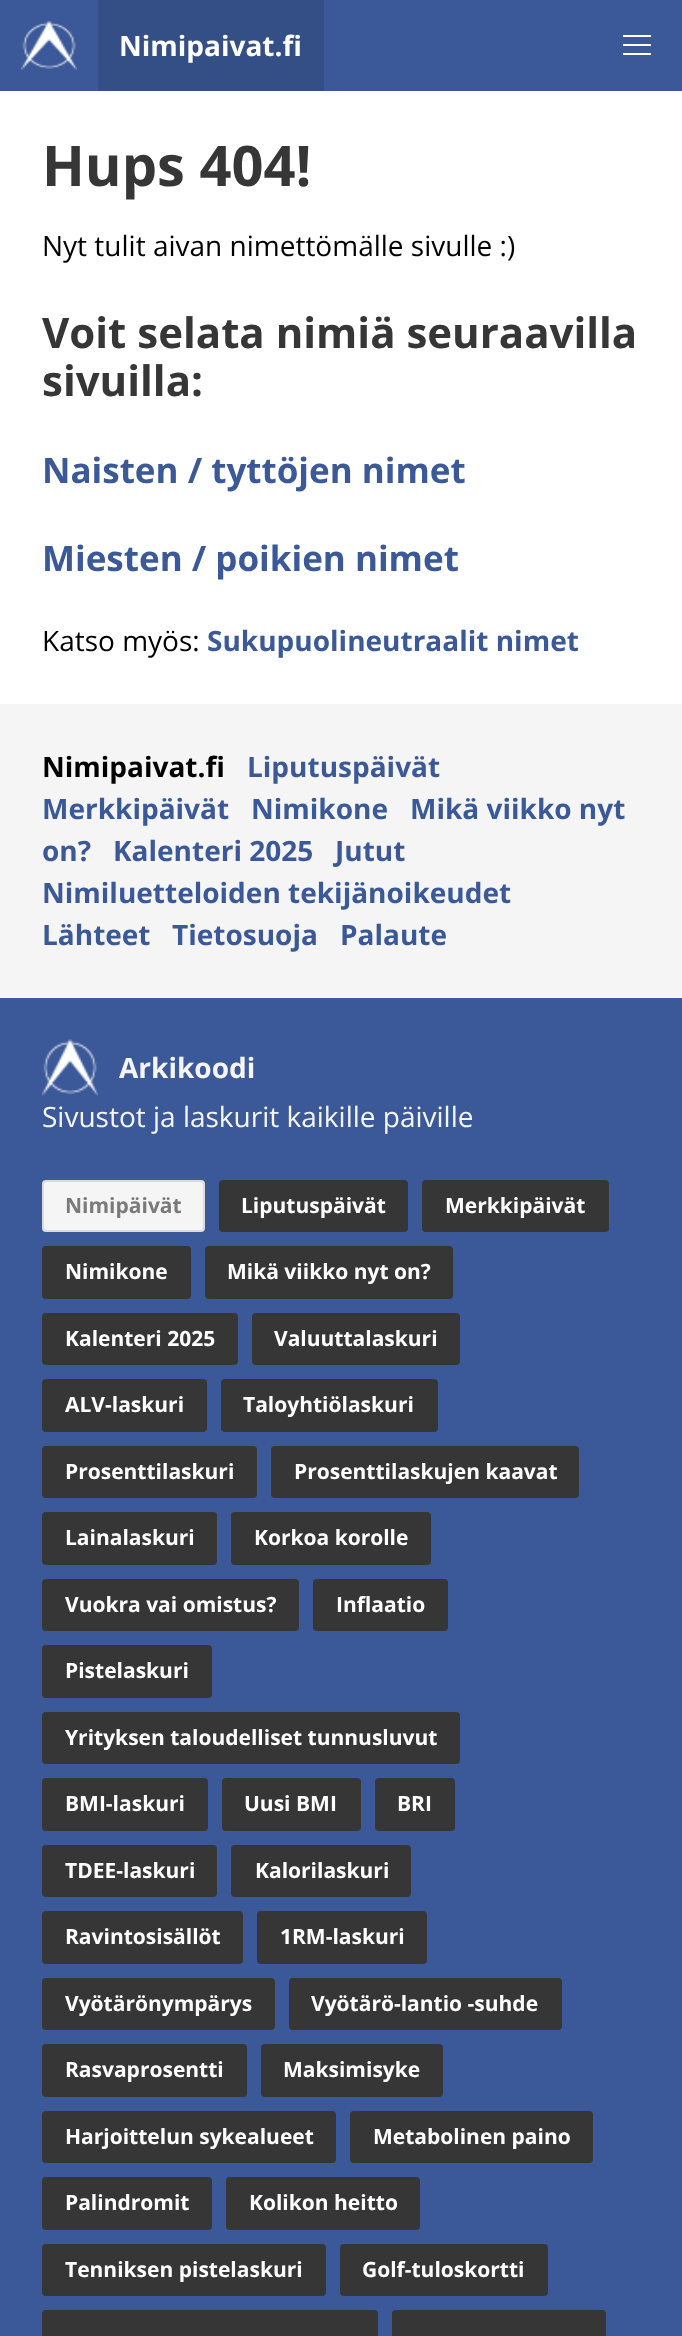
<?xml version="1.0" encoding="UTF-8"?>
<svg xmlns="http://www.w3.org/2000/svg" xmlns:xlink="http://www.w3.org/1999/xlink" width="682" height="2336">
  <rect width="100%" height="100%" fill="#ffffff" />
  <rect width="682" height="91" fill="#3b5998" />
  <image x="21" y="21" width="56" height="49" xlink:href="image1.png" />
  <rect x="98" width="226" height="91" fill="#344e86" />
  <rect x="623" y="35" width="28" height="2" fill="#ffffff" />
  <rect x="623" y="44" width="28" height="2" fill="#ffffff" />
  <rect x="623" y="53" width="28" height="2" fill="#ffffff" />
  <rect y="704" width="682" height="294" fill="#f5f5f5" />
  <rect y="998" width="682" height="1338" fill="#3b5998" />
  <image x="42" y="1039" width="56" height="57" xlink:href="image2.png" />
  <rect x="43" y="1181" width="161" height="50" rx="3" fill="#f5f5f5" stroke="#dbdbdb" stroke-width="2" />
  <rect x="219" y="1180" width="189" height="52" rx="4" fill="#363636" />
  <rect x="422" y="1180" width="187" height="52" rx="4" fill="#363636" />
  <rect x="42" y="1246" width="149" height="53" rx="4" fill="#363636" />
  <rect x="205" y="1246" width="248" height="53" rx="4" fill="#363636" />
  <rect x="42" y="1313" width="196" height="52" rx="4" fill="#363636" />
  <rect x="252" y="1313" width="208" height="52" rx="4" fill="#363636" />
  <rect x="42" y="1379" width="165" height="53" rx="4" fill="#363636" />
  <rect x="221" y="1379" width="217" height="53" rx="4" fill="#363636" />
  <rect x="42" y="1446" width="215" height="52" rx="4" fill="#363636" />
  <rect x="271" y="1446" width="308" height="52" rx="4" fill="#363636" />
  <rect x="42" y="1512" width="175" height="53" rx="4" fill="#363636" />
  <rect x="231" y="1512" width="200" height="53" rx="4" fill="#363636" />
  <rect x="42" y="1579" width="257" height="52" rx="4" fill="#363636" />
  <rect x="313" y="1579" width="135" height="52" rx="4" fill="#363636" />
  <rect x="42" y="1645" width="170" height="53" rx="4" fill="#363636" />
  <rect x="42" y="1712" width="418" height="52" rx="4" fill="#363636" />
  <rect x="42" y="1778" width="166" height="53" rx="4" fill="#363636" />
  <rect x="222" y="1778" width="139" height="53" rx="4" fill="#363636" />
  <rect x="375" y="1778" width="80" height="53" rx="4" fill="#363636" />
  <rect x="42" y="1845" width="175" height="52" rx="4" fill="#363636" />
  <rect x="231" y="1845" width="180" height="52" rx="4" fill="#363636" />
  <rect x="42" y="1911" width="201" height="53" rx="4" fill="#363636" />
  <rect x="257" y="1911" width="170" height="53" rx="4" fill="#363636" />
  <rect x="42" y="1978" width="233" height="52" rx="4" fill="#363636" />
  <rect x="289" y="1978" width="273" height="52" rx="4" fill="#363636" />
  <rect x="42" y="2044" width="205" height="53" rx="4" fill="#363636" />
  <rect x="261" y="2044" width="182" height="53" rx="4" fill="#363636" />
  <rect x="42" y="2111" width="294" height="52" rx="4" fill="#363636" />
  <rect x="350" y="2111" width="243" height="52" rx="4" fill="#363636" />
  <rect x="42" y="2177" width="170" height="53" rx="4" fill="#363636" />
  <rect x="226" y="2177" width="194" height="53" rx="4" fill="#363636" />
  <rect x="42" y="2244" width="284" height="52" rx="4" fill="#363636" />
  <rect x="340" y="2244" width="208" height="52" rx="4" fill="#363636" />
  <rect x="42" y="2310" width="336" height="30" rx="4" fill="#363636" />
  <rect x="392" y="2310" width="214" height="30" rx="4" fill="#363636" />
  <text x="119" y="56" style="font-family: Open Sans; font-size: 28px; font-weight: bold; fill: #ffffff">Nimipaivat.fi</text>
  <text x="42" y="186" style="font-family: Open Sans; font-size: 56px; font-weight: bold; fill: #363636">Hups 404!</text>
  <text x="42" y="256" style="font-family: Open Sans; font-size: 28px; fill: #000000">Nyt tulit aivan nimettömälle sivulle :)</text>
  <text x="42" y="348" style="font-family: Open Sans; font-size: 42px; font-weight: bold; fill: #363636">Voit selata nimiä seuraavilla</text>
  <text x="42" y="396" style="font-family: Open Sans; font-size: 42px; font-weight: bold; fill: #363636">sivuilla:</text>
  <text x="42" y="483" style="font-family: Open Sans; font-size: 35px; font-weight: bold; fill: #3b5998">Naisten / tyttöjen nimet</text>
  <text x="42" y="571" style="font-family: Open Sans; font-size: 35px; font-weight: bold; fill: #3b5998">Miesten / poikien nimet</text>
  <text x="42" y="651" style="font-family: Open Sans; font-size: 28px; fill: #000000">Katso myös:</text>
  <text x="207" y="651" style="font-family: Open Sans; font-size: 28px; font-weight: bold; fill: #3b5998">Sukupuolineutraalit nimet</text>
  <text x="42" y="777" style="font-family: Open Sans; font-size: 28px; font-weight: bold; fill: #000000">Nimipaivat.fi</text>
  <text x="247" y="777" style="font-family: Open Sans; font-size: 28px; font-weight: bold; fill: #3b5998">Liputuspäivät</text>
  <text x="42" y="819" style="font-family: Open Sans; font-size: 28px; font-weight: bold; fill: #3b5998">Merkkipäivät</text>
  <text x="251" y="819" style="font-family: Open Sans; font-size: 28px; font-weight: bold; fill: #3b5998">Nimikone</text>
  <text x="410" y="819" style="font-family: Open Sans; font-size: 28px; font-weight: bold; fill: #3b5998">Mikä viikko nyt</text>
  <text x="42" y="861" style="font-family: Open Sans; font-size: 28px; font-weight: bold; fill: #3b5998">on?</text>
  <text x="113" y="861" style="font-family: Open Sans; font-size: 28px; font-weight: bold; fill: #3b5998">Kalenteri 2025</text>
  <text x="335" y="861" style="font-family: Open Sans; font-size: 28px; font-weight: bold; fill: #3b5998">Jutut</text>
  <text x="42" y="903" style="font-family: Open Sans; font-size: 28px; font-weight: bold; fill: #3b5998">Nimiluetteloiden tekijänoikeudet</text>
  <text x="42" y="945" style="font-family: Open Sans; font-size: 28px; font-weight: bold; fill: #3b5998">Lähteet</text>
  <text x="172" y="945" style="font-family: Open Sans; font-size: 28px; font-weight: bold; fill: #3b5998">Tietosuoja</text>
  <text x="340" y="945" style="font-family: Open Sans; font-size: 28px; font-weight: bold; fill: #3b5998">Palaute</text>
  <text x="119" y="1078" style="font-family: Open Sans; font-size: 28px; font-weight: bold; fill: #f5f5f5">Arkikoodi</text>
  <text x="42" y="1127" style="font-family: Open Sans; font-size: 28px; fill: #f5f5f5">Sivustot ja laskurit kaikille päiville</text>
  <text x="65" y="1213" style="font-family: Open Sans; font-size: 21px; font-weight: bold; fill: #7a7a7a">Nimipäivät</text>
  <text x="241" y="1213" style="font-family: Open Sans; font-size: 21px; font-weight: bold; fill: #ffffff">Liputuspäivät</text>
  <text x="445" y="1213" style="font-family: Open Sans; font-size: 21px; font-weight: bold; fill: #ffffff">Merkkipäivät</text>
  <text x="65" y="1279" style="font-family: Open Sans; font-size: 21px; font-weight: bold; fill: #ffffff">Nimikone</text>
  <text x="227" y="1279" style="font-family: Open Sans; font-size: 21px; font-weight: bold; fill: #ffffff">Mikä viikko nyt on?</text>
  <text x="65" y="1346" style="font-family: Open Sans; font-size: 21px; font-weight: bold; fill: #ffffff">Kalenteri 2025</text>
  <text x="274" y="1346" style="font-family: Open Sans; font-size: 21px; font-weight: bold; fill: #ffffff">Valuuttalaskuri</text>
  <text x="65" y="1412" style="font-family: Open Sans; font-size: 21px; font-weight: bold; fill: #ffffff">ALV-laskuri</text>
  <text x="243" y="1412" style="font-family: Open Sans; font-size: 21px; font-weight: bold; fill: #ffffff">Taloyhtiölaskuri</text>
  <text x="65" y="1479" style="font-family: Open Sans; font-size: 21px; font-weight: bold; fill: #ffffff">Prosenttilaskuri</text>
  <text x="294" y="1479" style="font-family: Open Sans; font-size: 21px; font-weight: bold; fill: #ffffff">Prosenttilaskujen kaavat</text>
  <text x="65" y="1545" style="font-family: Open Sans; font-size: 21px; font-weight: bold; fill: #ffffff">Lainalaskuri</text>
  <text x="254" y="1545" style="font-family: Open Sans; font-size: 21px; font-weight: bold; fill: #ffffff">Korkoa korolle</text>
  <text x="65" y="1612" style="font-family: Open Sans; font-size: 21px; font-weight: bold; fill: #ffffff">Vuokra vai omistus?</text>
  <text x="336" y="1612" style="font-family: Open Sans; font-size: 21px; font-weight: bold; fill: #ffffff">Inflaatio</text>
  <text x="65" y="1678" style="font-family: Open Sans; font-size: 21px; font-weight: bold; fill: #ffffff">Pistelaskuri</text>
  <text x="65" y="1745" style="font-family: Open Sans; font-size: 21px; font-weight: bold; fill: #ffffff">Yrityksen taloudelliset tunnusluvut</text>
  <text x="65" y="1811" style="font-family: Open Sans; font-size: 21px; font-weight: bold; fill: #ffffff">BMI-laskuri</text>
  <text x="244" y="1811" style="font-family: Open Sans; font-size: 21px; font-weight: bold; fill: #ffffff">Uusi BMI</text>
  <text x="397" y="1811" style="font-family: Open Sans; font-size: 21px; font-weight: bold; fill: #ffffff">BRI</text>
  <text x="65" y="1878" style="font-family: Open Sans; font-size: 21px; font-weight: bold; fill: #ffffff">TDEE-laskuri</text>
  <text x="255" y="1878" style="font-family: Open Sans; font-size: 21px; font-weight: bold; fill: #ffffff">Kalorilaskuri</text>
  <text x="65" y="1944" style="font-family: Open Sans; font-size: 21px; font-weight: bold; fill: #ffffff">Ravintosisällöt</text>
  <text x="280" y="1944" style="font-family: Open Sans; font-size: 21px; font-weight: bold; fill: #ffffff">1RM-laskuri</text>
  <text x="65" y="2011" style="font-family: Open Sans; font-size: 21px; font-weight: bold; fill: #ffffff">Vyötärönympärys</text>
  <text x="311" y="2011" style="font-family: Open Sans; font-size: 21px; font-weight: bold; fill: #ffffff">Vyötärö-lantio -suhde</text>
  <text x="65" y="2077" style="font-family: Open Sans; font-size: 21px; font-weight: bold; fill: #ffffff">Rasvaprosentti</text>
  <text x="283" y="2077" style="font-family: Open Sans; font-size: 21px; font-weight: bold; fill: #ffffff">Maksimisyke</text>
  <text x="65" y="2144" style="font-family: Open Sans; font-size: 21px; font-weight: bold; fill: #ffffff">Harjoittelun sykealueet</text>
  <text x="373" y="2144" style="font-family: Open Sans; font-size: 21px; font-weight: bold; fill: #ffffff">Metabolinen paino</text>
  <text x="65" y="2210" style="font-family: Open Sans; font-size: 21px; font-weight: bold; fill: #ffffff">Palindromit</text>
  <text x="249" y="2210" style="font-family: Open Sans; font-size: 21px; font-weight: bold; fill: #ffffff">Kolikon heitto</text>
  <text x="65" y="2277" style="font-family: Open Sans; font-size: 21px; font-weight: bold; fill: #ffffff">Tenniksen pistelaskuri</text>
  <text x="362" y="2277" style="font-family: Open Sans; font-size: 21px; font-weight: bold; fill: #ffffff">Golf-tuloskortti</text>
</svg>
